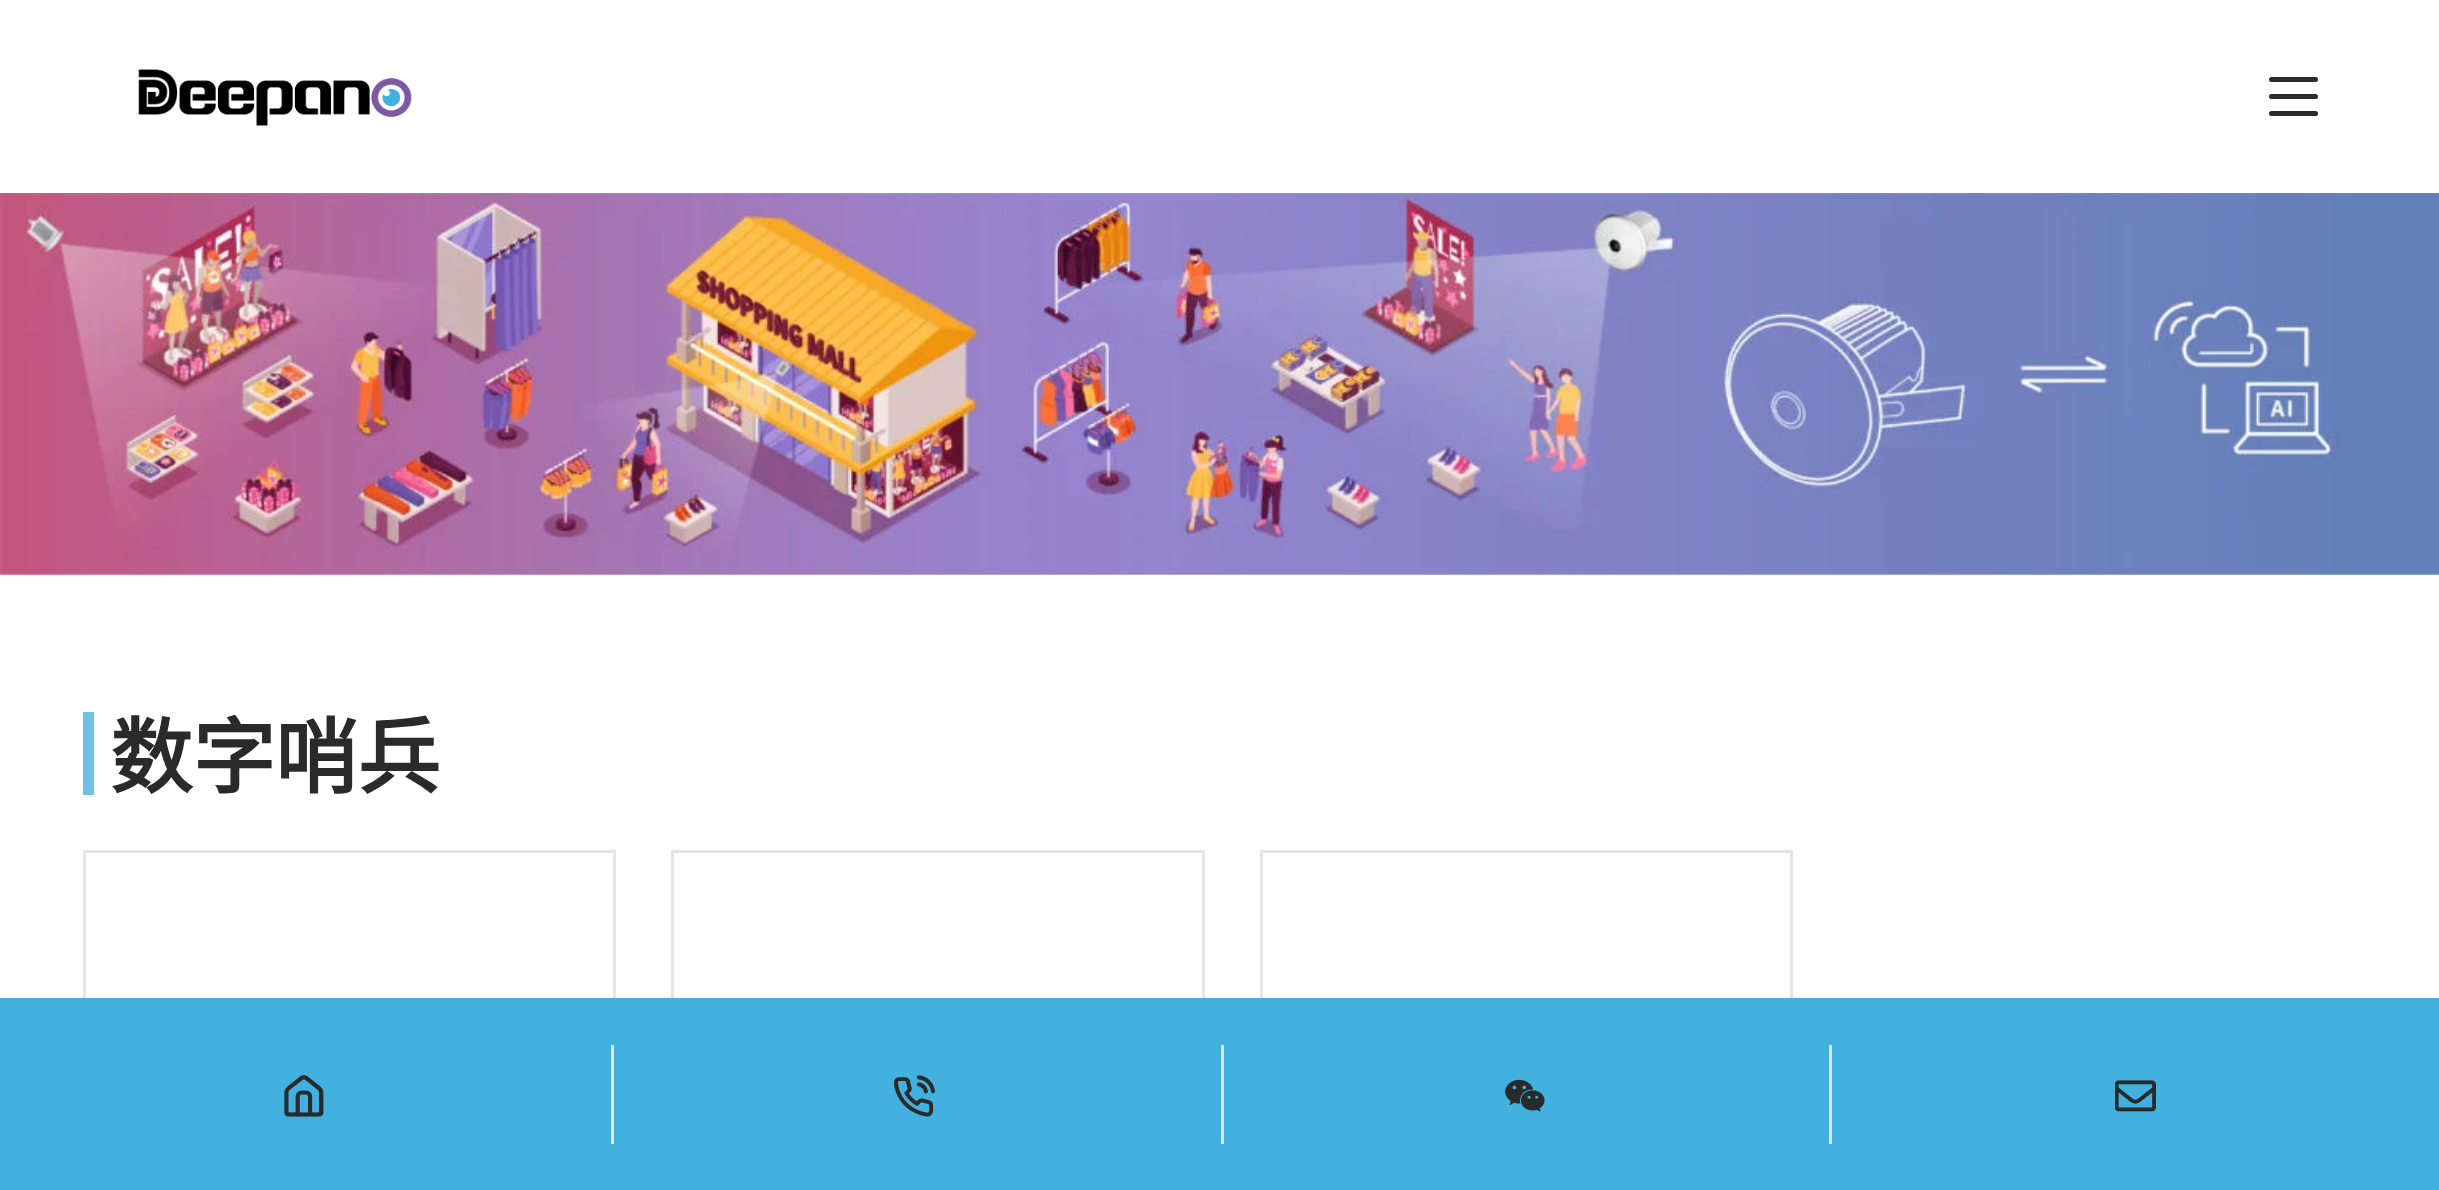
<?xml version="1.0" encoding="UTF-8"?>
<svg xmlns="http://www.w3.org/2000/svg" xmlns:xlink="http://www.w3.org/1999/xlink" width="2439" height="1190">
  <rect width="100%" height="100%" fill="#ffffff" />
  <image x="138" y="69" width="274" height="57" xlink:href="image1.png" />
  <rect x="2269" y="77" width="49" height="5" rx="2.5" fill="#2a2a2a" />
  <rect x="2269" y="94" width="49" height="5" rx="2.5" fill="#2a2a2a" />
  <rect x="2269" y="111" width="49" height="5" rx="2.5" fill="#2a2a2a" />
  <image x="0" y="193" width="2439" height="382" xlink:href="image2.png" />
  <rect x="83" y="712" width="11" height="83" fill="#6ec1e4" />
  <rect x="84.5" y="851.5" width="530" height="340" fill="none" stroke="#e5e5e5" stroke-width="3" />
  <rect x="672.5" y="851.5" width="531" height="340" fill="none" stroke="#e5e5e5" stroke-width="3" />
  <rect x="1261.5" y="851.5" width="530" height="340" fill="none" stroke="#e5e5e5" stroke-width="3" />
  <rect y="998" width="2439" height="192" fill="#42b1df" />
  <image x="284" y="1075" width="40" height="42" xlink:href="image3.png" />
  <rect x="611" y="1045" width="3" height="99" fill="#e5e5e5" />
  <image x="894" y="1075" width="41" height="42" xlink:href="image4.png" />
  <rect x="1221" y="1045" width="3" height="99" fill="#e5e5e5" />
  <image x="1505" y="1079" width="40" height="33" xlink:href="image5.png" />
  <rect x="1829" y="1045" width="3" height="99" fill="#e5e5e5" />
  <image x="2115" y="1080" width="41" height="32" xlink:href="image6.png" />
  <text x="110" y="787" style="font-family: Noto Sans CJK SC; font-size: 82.5px; font-weight: bold; fill: #2a2a2a">数字哨兵</text>
</svg>
